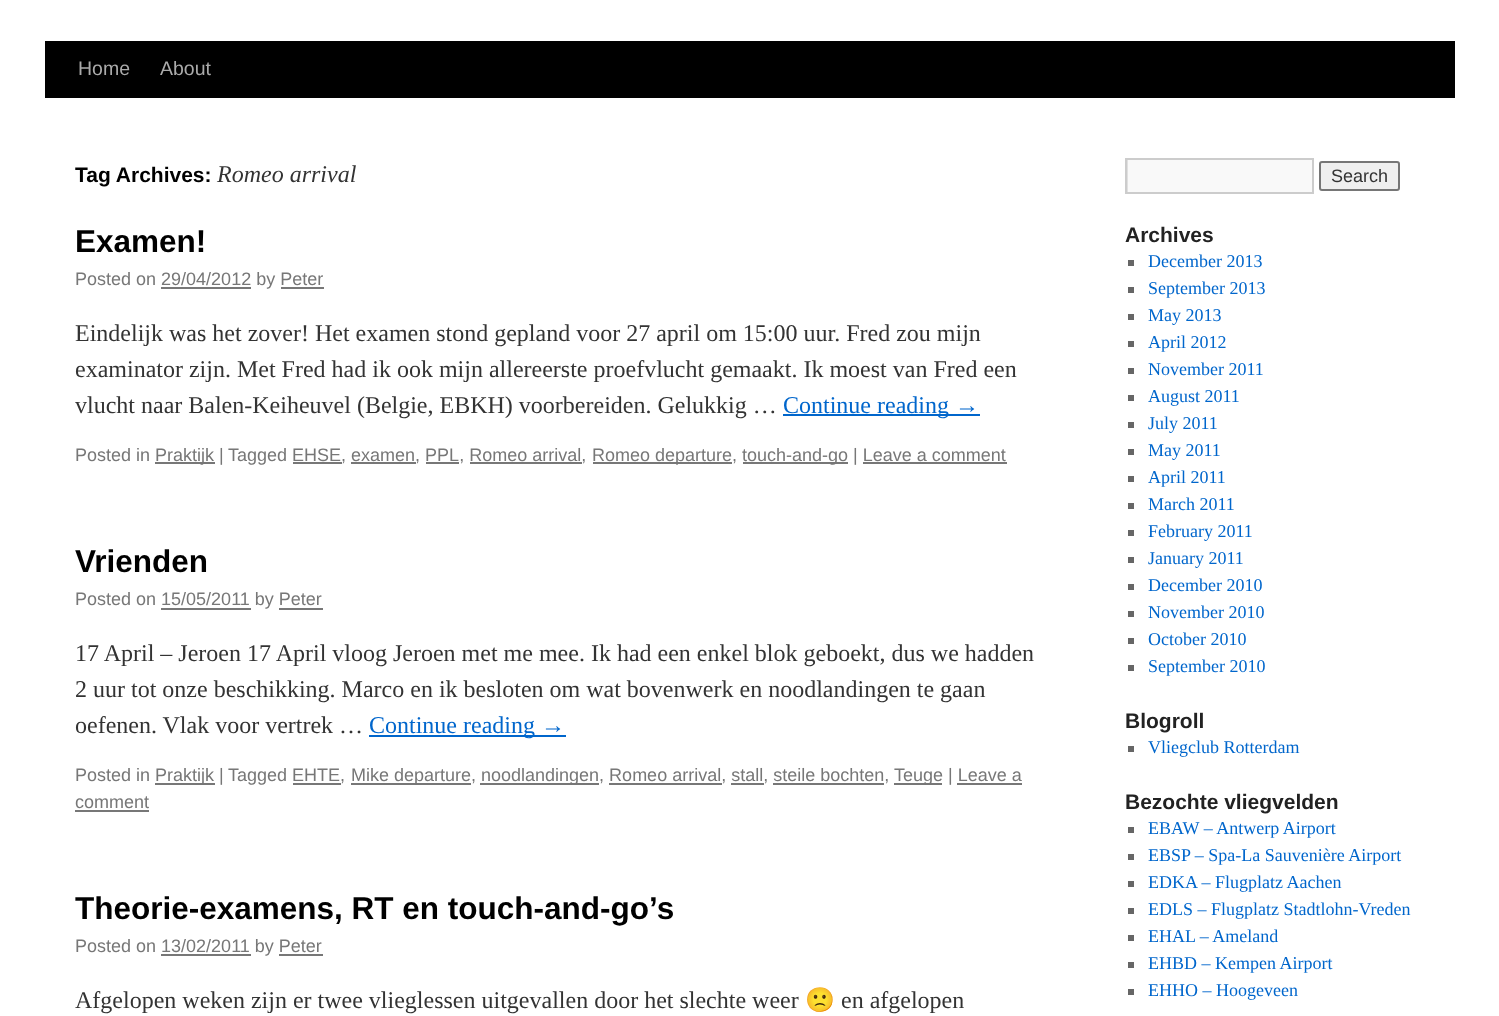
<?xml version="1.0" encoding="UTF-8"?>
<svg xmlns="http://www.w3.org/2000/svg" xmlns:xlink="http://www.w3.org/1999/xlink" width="1499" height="1016">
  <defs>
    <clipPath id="clip1"><rect x="1127" y="159" width="186" height="33" /></clipPath>
  </defs>
  <rect width="100%" height="100%" fill="#ffffff" />
  <rect x="45" y="41" width="1410" height="57" fill="#000000" />
  <rect x="161" y="287" width="90" height="2" fill="#777777" />
  <rect x="281" y="287" width="43" height="2" fill="#777777" />
  <rect x="783" y="414" width="197" height="2" fill="#0066cc" />
  <rect x="155" y="462" width="60" height="2" fill="#777777" />
  <rect x="293" y="462" width="49" height="2" fill="#777777" />
  <rect x="351" y="462" width="65" height="2" fill="#777777" />
  <rect x="426" y="462" width="33" height="2" fill="#777777" />
  <rect x="470" y="462" width="112" height="2" fill="#777777" />
  <rect x="593" y="462" width="139" height="2" fill="#777777" />
  <rect x="743" y="462" width="105" height="2" fill="#777777" />
  <rect x="863" y="462" width="144" height="2" fill="#777777" />
  <rect x="161" y="608" width="90" height="2" fill="#777777" />
  <rect x="279" y="608" width="44" height="2" fill="#777777" />
  <rect x="369" y="735" width="197" height="2" fill="#0066cc" />
  <rect x="155" y="783" width="60" height="2" fill="#777777" />
  <rect x="293" y="783" width="48" height="2" fill="#777777" />
  <rect x="351" y="783" width="120" height="2" fill="#777777" />
  <rect x="480" y="783" width="119" height="2" fill="#777777" />
  <rect x="609" y="783" width="113" height="2" fill="#777777" />
  <rect x="731" y="783" width="33" height="2" fill="#777777" />
  <rect x="773" y="783" width="111" height="2" fill="#777777" />
  <rect x="894" y="783" width="48" height="2" fill="#777777" />
  <rect x="957" y="783" width="65" height="2" fill="#777777" />
  <rect x="75" y="810" width="74" height="2" fill="#777777" />
  <rect x="161" y="954" width="90" height="2" fill="#777777" />
  <rect x="279" y="954" width="44" height="2" fill="#777777" />
  <rect x="1128" y="160" width="184" height="32" fill="#f9f9f9" />
  <g clip-path="url(#clip1)">
    <path d="M 978 10 h 483 v 330 h -483 z m 150 150 h 186 v 34 h -186 z" fill="#e0e0e0" fill-rule="evenodd" />
  </g>
  <rect x="1126" y="159" width="187" height="34" fill="none" stroke="#cccccc" stroke-width="2" />
  <rect x="1320" y="162" width="79" height="28" rx="2" fill="#efefef" stroke="#767676" stroke-width="2" />
  <rect x="1128" y="260" width="6" height="6" fill="#666666" />
  <rect x="1128" y="287" width="6" height="6" fill="#666666" />
  <rect x="1128" y="314" width="6" height="6" fill="#666666" />
  <rect x="1128" y="341" width="6" height="6" fill="#666666" />
  <rect x="1128" y="368" width="6" height="6" fill="#666666" />
  <rect x="1128" y="395" width="6" height="6" fill="#666666" />
  <rect x="1128" y="422" width="6" height="6" fill="#666666" />
  <rect x="1128" y="449" width="6" height="6" fill="#666666" />
  <rect x="1128" y="476" width="6" height="6" fill="#666666" />
  <rect x="1128" y="503" width="6" height="6" fill="#666666" />
  <rect x="1128" y="530" width="6" height="6" fill="#666666" />
  <rect x="1128" y="557" width="6" height="6" fill="#666666" />
  <rect x="1128" y="584" width="6" height="6" fill="#666666" />
  <rect x="1128" y="611" width="6" height="6" fill="#666666" />
  <rect x="1128" y="638" width="6" height="6" fill="#666666" />
  <rect x="1128" y="665" width="6" height="6" fill="#666666" />
  <rect x="1128" y="746" width="6" height="6" fill="#666666" />
  <rect x="1128" y="827" width="6" height="6" fill="#666666" />
  <rect x="1128" y="854" width="6" height="6" fill="#666666" />
  <rect x="1128" y="881" width="6" height="6" fill="#666666" />
  <rect x="1128" y="908" width="6" height="6" fill="#666666" />
  <rect x="1128" y="935" width="6" height="6" fill="#666666" />
  <rect x="1128" y="962" width="6" height="6" fill="#666666" />
  <rect x="1128" y="989" width="6" height="6" fill="#666666" />
  <text x="78" y="75" style="font-family: Liberation Sans; font-size: 19.5px; fill: #aaaaaa">Home</text>
  <text x="160" y="75" style="font-family: Liberation Sans; font-size: 19.5px; fill: #aaaaaa">About</text>
  <text x="75" y="182" style="font-family: Liberation Sans; font-size: 21px; font-weight: bold; fill: #000000">Tag Archives:</text>
  <text x="217" y="182" style="font-family: Liberation Serif; font-size: 24px; font-style: italic; fill: #333333">Romeo arrival</text>
  <text x="75" y="252" style="font-family: Liberation Sans; font-size: 31.5px; font-weight: bold; fill: #000000">Examen!</text>
  <text x="75" y="285" style="font-family: Liberation Sans; font-size: 18px; fill: #777777">Posted on 29/04/2012 by Peter</text>
  <text x="75" y="341" style="font-family: Liberation Serif; font-size: 24px; fill: #333333">Eindelijk was het zover! Het examen stond gepland voor 27 april om 15:00 uur. Fred zou mijn</text>
  <text x="75" y="377" style="font-family: Liberation Serif; font-size: 24px; fill: #333333">examinator zijn. Met Fred had ik ook mijn allereerste proefvlucht gemaakt. Ik moest van Fred een</text>
  <text x="75" y="413" style="font-family: Liberation Serif; font-size: 24px; fill: #333333">vlucht naar Balen-Keiheuvel (Belgie, EBKH) voorbereiden. Gelukkig …</text>
  <text x="783" y="413" style="font-family: Liberation Serif; font-size: 24px; fill: #0066cc">Continue reading →</text>
  <text x="75" y="461" style="font-family: Liberation Sans; font-size: 18px; fill: #777777">Posted in</text>
  <text x="155" y="461" style="font-family: Liberation Sans; font-size: 18px; fill: #777777">Praktijk |</text>
  <text x="228" y="461" style="font-family: Liberation Sans; font-size: 18px; fill: #777777">Tagged EHSE, examen, PPL, Romeo arrival,</text>
  <text x="592" y="461" style="font-family: Liberation Sans; font-size: 18px; fill: #777777">Romeo departure,</text>
  <text x="742" y="461" style="font-family: Liberation Sans; font-size: 18px; fill: #777777">touch-and-go | Leave a comment</text>
  <text x="75" y="572" style="font-family: Liberation Sans; font-size: 31.5px; font-weight: bold; fill: #000000">Vrienden</text>
  <text x="75" y="605" style="font-family: Liberation Sans; font-size: 18px; fill: #777777">Posted on 15/05/2011 by Peter</text>
  <text x="75" y="661" style="font-family: Liberation Serif; font-size: 24px; fill: #333333">17 April – Jeroen 17 April vloog Jeroen met me mee. Ik had een enkel blok geboekt, dus we hadden</text>
  <text x="75" y="697" style="font-family: Liberation Serif; font-size: 24px; fill: #333333">2 uur tot onze beschikking. Marco en ik besloten om wat bovenwerk en noodlandingen te gaan</text>
  <text x="75" y="733" style="font-family: Liberation Serif; font-size: 24px; fill: #333333">oefenen. Vlak voor vertrek …</text>
  <text x="369" y="733" style="font-family: Liberation Serif; font-size: 24px; fill: #0066cc">Continue reading →</text>
  <text x="75" y="781" style="font-family: Liberation Sans; font-size: 18px; fill: #777777">Posted in</text>
  <text x="155" y="781" style="font-family: Liberation Sans; font-size: 18px; fill: #777777">Praktijk |</text>
  <text x="228" y="781" style="font-family: Liberation Sans; font-size: 18px; fill: #777777">Tagged EHTE,</text>
  <text x="351" y="781" style="font-family: Liberation Sans; font-size: 18px; fill: #777777">Mike departure,</text>
  <text x="481" y="781" style="font-family: Liberation Sans; font-size: 18px; fill: #777777">noodlandingen, Romeo arrival, stall, steile bochten,</text>
  <text x="894" y="781" style="font-family: Liberation Sans; font-size: 18px; fill: #777777">Teuge | Leave a</text>
  <text x="75" y="808" style="font-family: Liberation Sans; font-size: 18px; fill: #777777">comment</text>
  <text x="75" y="919" style="font-family: Liberation Sans; font-size: 31.5px; font-weight: bold; fill: #000000">Theorie-examens, RT en touch-and-go’s</text>
  <text x="75" y="952" style="font-family: Liberation Sans; font-size: 18px; fill: #777777">Posted on 13/02/2011 by Peter</text>
  <text x="75" y="1008" style="font-family: Liberation Serif; font-size: 24px; fill: #333333">Afgelopen weken zijn er twee vlieglessen uitgevallen door het slechte weer</text>
  <text x="805" y="1008" style="font-family: Noto Color Emoji; font-size: 24px; fill: #333333">🙁</text>
  <text x="841" y="1008" style="font-family: Liberation Serif; font-size: 24px; fill: #333333">en afgelopen</text>
  <text x="1331" y="182" style="font-family: Liberation Sans; font-size: 18px; fill: #333333">Search</text>
  <text x="1125" y="242" style="font-family: Liberation Sans; font-size: 21px; font-weight: bold; fill: #222222">Archives</text>
  <text x="1148" y="267" style="font-family: Liberation Serif; font-size: 18px; fill: #0066cc">December 2013</text>
  <text x="1148" y="294" style="font-family: Liberation Serif; font-size: 18px; fill: #0066cc">September 2013</text>
  <text x="1148" y="321" style="font-family: Liberation Serif; font-size: 18px; fill: #0066cc">May 2013</text>
  <text x="1148" y="348" style="font-family: Liberation Serif; font-size: 18px; fill: #0066cc">April 2012</text>
  <text x="1148" y="375" style="font-family: Liberation Serif; font-size: 18px; fill: #0066cc">November 2011</text>
  <text x="1148" y="402" style="font-family: Liberation Serif; font-size: 18px; fill: #0066cc">August 2011</text>
  <text x="1148" y="429" style="font-family: Liberation Serif; font-size: 18px; fill: #0066cc">July 2011</text>
  <text x="1148" y="456" style="font-family: Liberation Serif; font-size: 18px; fill: #0066cc">May 2011</text>
  <text x="1148" y="483" style="font-family: Liberation Serif; font-size: 18px; fill: #0066cc">April 2011</text>
  <text x="1148" y="510" style="font-family: Liberation Serif; font-size: 18px; fill: #0066cc">March 2011</text>
  <text x="1148" y="537" style="font-family: Liberation Serif; font-size: 18px; fill: #0066cc">February 2011</text>
  <text x="1148" y="564" style="font-family: Liberation Serif; font-size: 18px; fill: #0066cc">January 2011</text>
  <text x="1148" y="591" style="font-family: Liberation Serif; font-size: 18px; fill: #0066cc">December 2010</text>
  <text x="1148" y="618" style="font-family: Liberation Serif; font-size: 18px; fill: #0066cc">November 2010</text>
  <text x="1148" y="645" style="font-family: Liberation Serif; font-size: 18px; fill: #0066cc">October 2010</text>
  <text x="1148" y="672" style="font-family: Liberation Serif; font-size: 18px; fill: #0066cc">September 2010</text>
  <text x="1125" y="728" style="font-family: Liberation Sans; font-size: 21px; font-weight: bold; fill: #222222">Blogroll</text>
  <text x="1148" y="753" style="font-family: Liberation Serif; font-size: 18px; fill: #0066cc">Vliegclub Rotterdam</text>
  <text x="1125" y="809" style="font-family: Liberation Sans; font-size: 21px; font-weight: bold; fill: #222222">Bezochte vliegvelden</text>
  <text x="1148" y="834" style="font-family: Liberation Serif; font-size: 18px; fill: #0066cc">EBAW – Antwerp Airport</text>
  <text x="1148" y="861" style="font-family: Liberation Serif; font-size: 18px; fill: #0066cc">EBSP – Spa-La Sauvenière Airport</text>
  <text x="1148" y="888" style="font-family: Liberation Serif; font-size: 18px; fill: #0066cc">EDKA – Flugplatz Aachen</text>
  <text x="1148" y="915" style="font-family: Liberation Serif; font-size: 18px; fill: #0066cc">EDLS – Flugplatz Stadtlohn-Vreden</text>
  <text x="1148" y="942" style="font-family: Liberation Serif; font-size: 18px; fill: #0066cc">EHAL – Ameland</text>
  <text x="1148" y="969" style="font-family: Liberation Serif; font-size: 18px; fill: #0066cc">EHBD – Kempen Airport</text>
  <text x="1148" y="996" style="font-family: Liberation Serif; font-size: 18px; fill: #0066cc">EHHO – Hoogeveen</text>
</svg>
